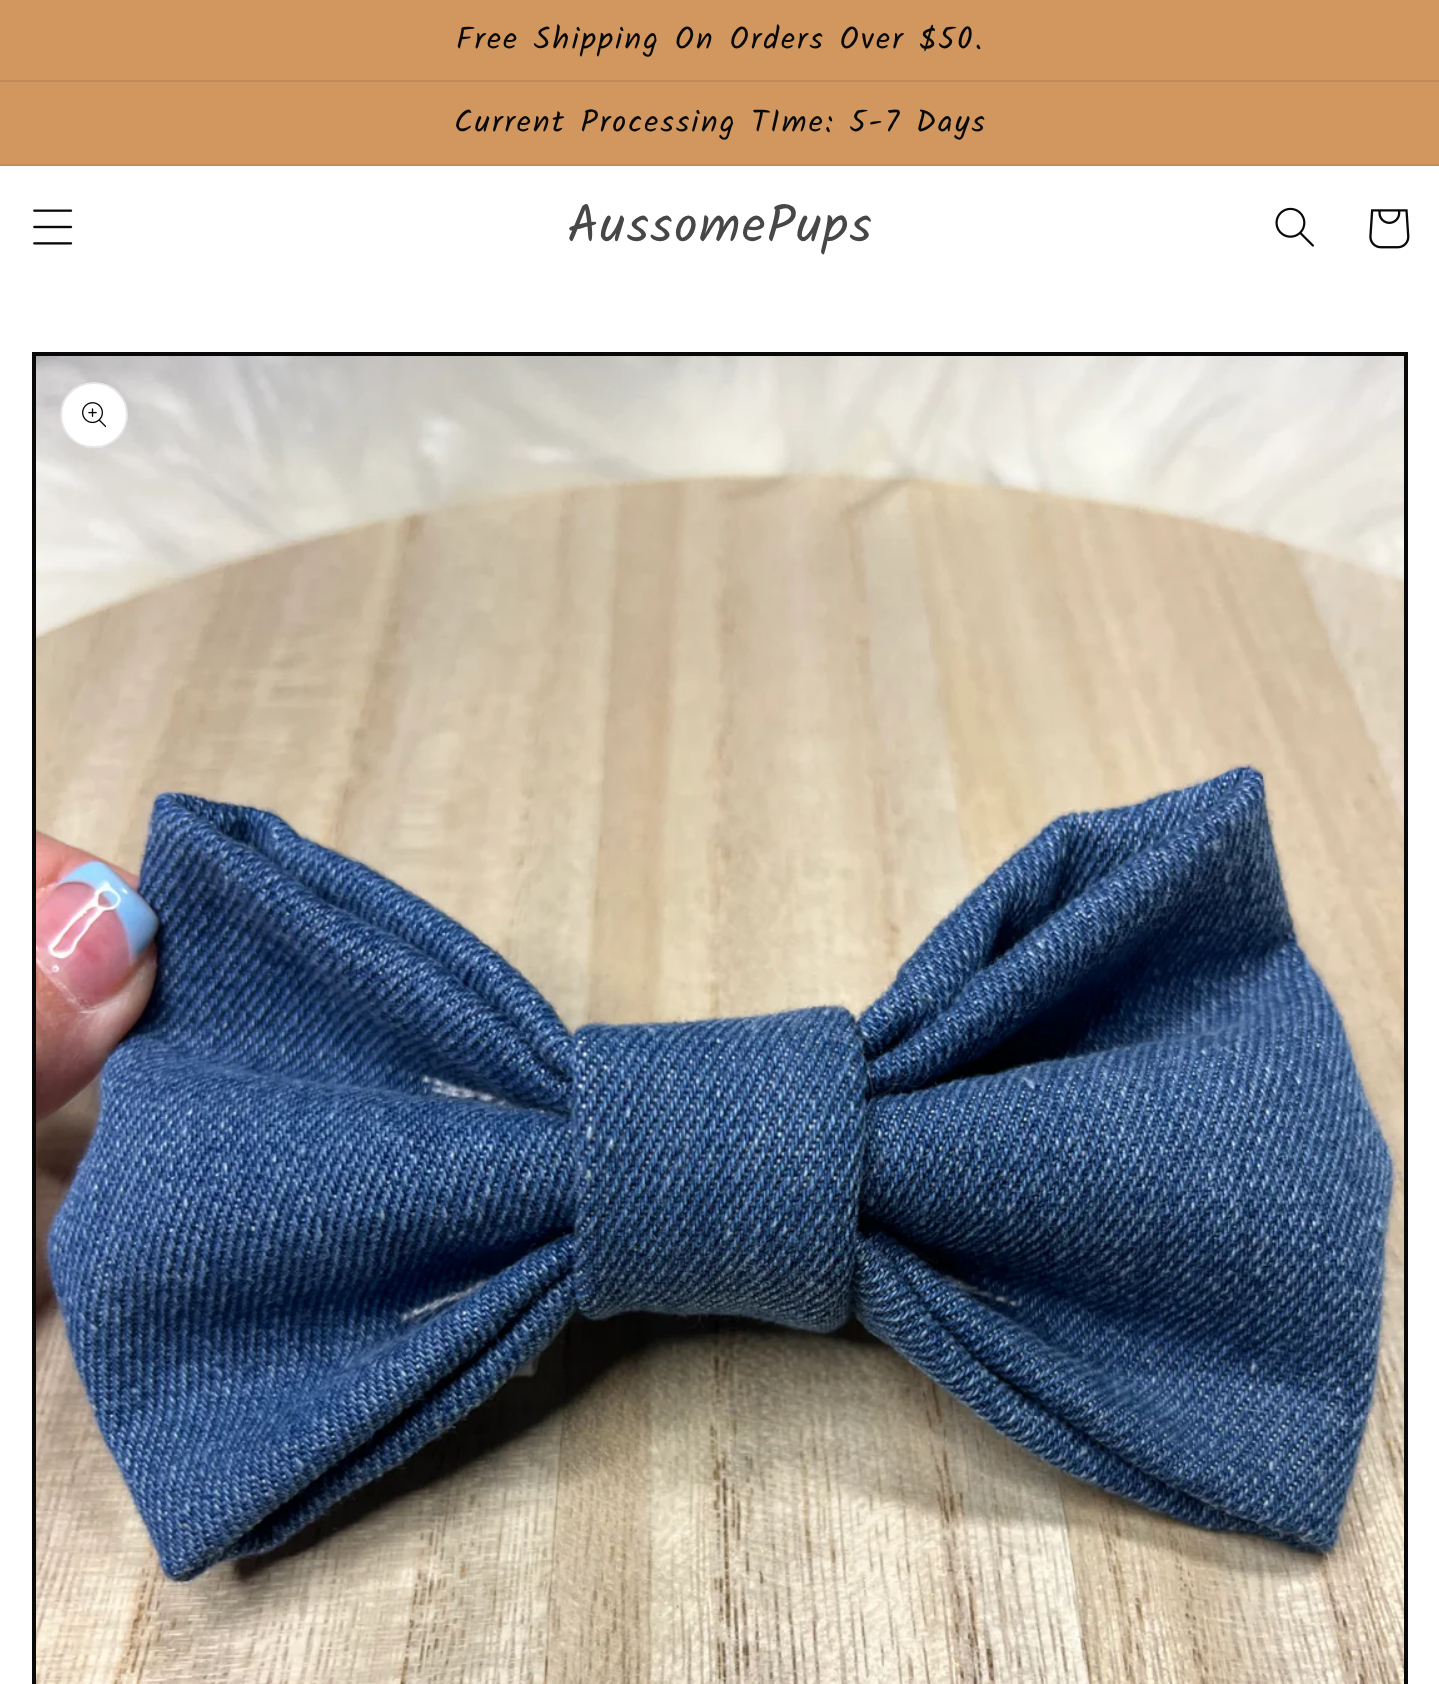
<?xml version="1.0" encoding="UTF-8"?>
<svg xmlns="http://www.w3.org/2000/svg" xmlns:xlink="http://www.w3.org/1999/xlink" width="1439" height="1684">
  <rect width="100%" height="100%" fill="#ffffff" />
  <rect width="1439" height="80" fill="#d1975f" />
  <rect y="80" width="1439" height="2" fill="#c18c58" />
  <rect y="82" width="1439" height="82" fill="#d1975f" />
  <rect y="164" width="1439" height="2" fill="#c18c58" />
  <image x="33" y="209" width="40" height="36" xlink:href="image1.png" />
  <image x="1275" y="207" width="39" height="40" xlink:href="image2.png" />
  <image x="1369" y="209" width="41" height="40" xlink:href="image3.png" />
  <rect x="34" y="354" width="1372" height="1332" fill="none" stroke="#0a0909" stroke-width="4" />
  <image x="36" y="356" width="1368" height="1328" xlink:href="image4.png" />
  <rect x="60" y="382" width="68" height="66" rx="33" fill="#ffffff" />
  <rect x="61" y="383" width="66" height="64" rx="32" fill="none" stroke="#0a0909" stroke-opacity="0.1" stroke-width="2" />
  <image x="82" y="402" width="24" height="26" xlink:href="image5.png" />
  <text x="456" y="49" style="font-family: Kalam; font-size: 31.25px; letter-spacing: 2.1px; fill: #0a0909">Free Shipping On Orders Over $50.</text>
  <text x="454" y="132" style="font-family: Kalam; font-size: 31.25px; letter-spacing: 2.1px; fill: #0a0909">Current Processing TIme: 5-7 Days</text>
  <text x="567" y="242" style="font-family: Kalam; font-size: 52px; letter-spacing: 1.5px; fill: #474747">AussomePups</text>
</svg>
